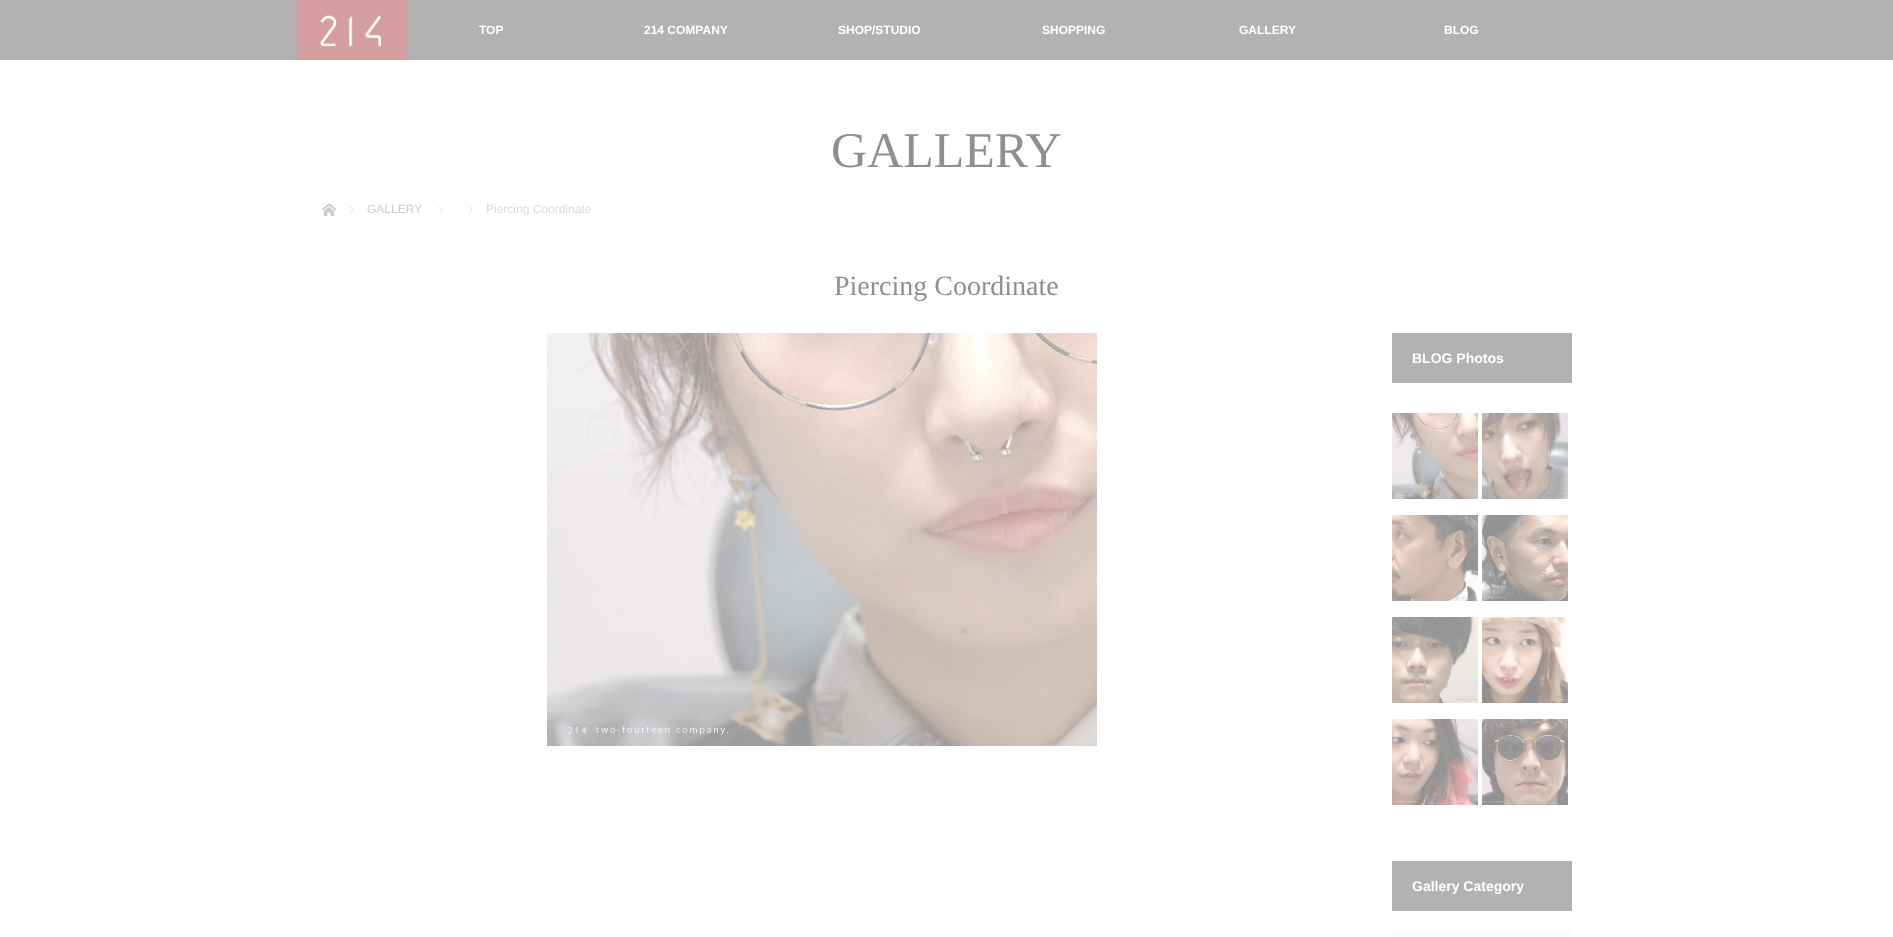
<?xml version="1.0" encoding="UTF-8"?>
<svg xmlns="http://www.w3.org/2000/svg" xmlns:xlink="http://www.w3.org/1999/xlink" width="1893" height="937">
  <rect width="100%" height="100%" fill="#ffffff" />
  <rect width="1893" height="60" fill="#b2b2b2" />
  <image x="296" y="0" width="111" height="60" xlink:href="image1.png" />
  <image x="322" y="203" width="14" height="13" xlink:href="image2.png" />
  <image x="349" y="206" width="5" height="8" xlink:href="image3.png" />
  <image x="438" y="206" width="5" height="8" xlink:href="image3.png" />
  <image x="468" y="206" width="5" height="8" xlink:href="image3.png" />
  <image x="547" y="333" width="550" height="413" xlink:href="image4.png" />
  <rect x="1392" y="333" width="180" height="50" fill="#b2b2b2" />
  <image x="1392" y="413" width="86" height="86" xlink:href="image5.png" />
  <image x="1482" y="413" width="86" height="86" xlink:href="image6.png" />
  <image x="1392" y="515" width="86" height="86" xlink:href="image7.png" />
  <image x="1482" y="515" width="86" height="86" xlink:href="image8.png" />
  <image x="1392" y="617" width="86" height="86" xlink:href="image9.png" />
  <image x="1482" y="617" width="86" height="86" xlink:href="image10.png" />
  <image x="1392" y="719" width="86" height="86" xlink:href="image11.png" />
  <image x="1482" y="719" width="86" height="86" xlink:href="image12.png" />
  <rect x="1392" y="861" width="180" height="50" fill="#b2b2b2" />
  <rect x="1392" y="931" width="180" height="6" fill="#fbfbfb" />
  <text x="479" y="34" style="font-family: Liberation Sans; font-size: 12px; font-weight: bold; fill: #ffffff">TOP</text>
  <text x="644" y="34" style="font-family: Liberation Sans; font-size: 12px; font-weight: bold; fill: #ffffff">214 COMPANY</text>
  <text x="838" y="34" style="font-family: Liberation Sans; font-size: 12px; font-weight: bold; fill: #ffffff">SHOP/STUDIO</text>
  <text x="1042" y="34" style="font-family: Liberation Sans; font-size: 12px; font-weight: bold; fill: #ffffff">SHOPPING</text>
  <text x="1239" y="34" style="font-family: Liberation Sans; font-size: 12px; font-weight: bold; fill: #ffffff">GALLERY</text>
  <text x="1444" y="34" style="font-family: Liberation Sans; font-size: 12px; font-weight: bold; fill: #ffffff">BLOG</text>
  <text x="831" y="167" style="font-family: Liberation Serif; font-size: 50px; fill: #8f8f8f">GALLERY</text>
  <text x="367" y="213" style="font-family: Liberation Sans; font-size: 12px; fill: #cbcbcb">GALLERY</text>
  <text x="486" y="213" style="font-family: Liberation Sans; font-size: 12px; fill: #dadada">Piercing Coordinate</text>
  <text x="834" y="295" style="font-family: Liberation Serif; font-size: 28px; fill: #8f8f8f">Piercing Coordinate</text>
  <text x="1412" y="363" style="font-family: Liberation Sans; font-size: 14px; font-weight: bold; fill: #ffffff">BLOG Photos</text>
  <text x="1539" y="578" style="font-family: Liberation Sans; font-size: 12px; fill: #bbb0aa">S</text>
  <text x="1490" y="596" style="font-family: Liberation Sans; font-size: 12px; fill: #a09fa0">DIGITAL</text>
  <text x="1412" y="891" style="font-family: Liberation Sans; font-size: 14px; font-weight: bold; fill: #ffffff">Gallery Category</text>
</svg>
